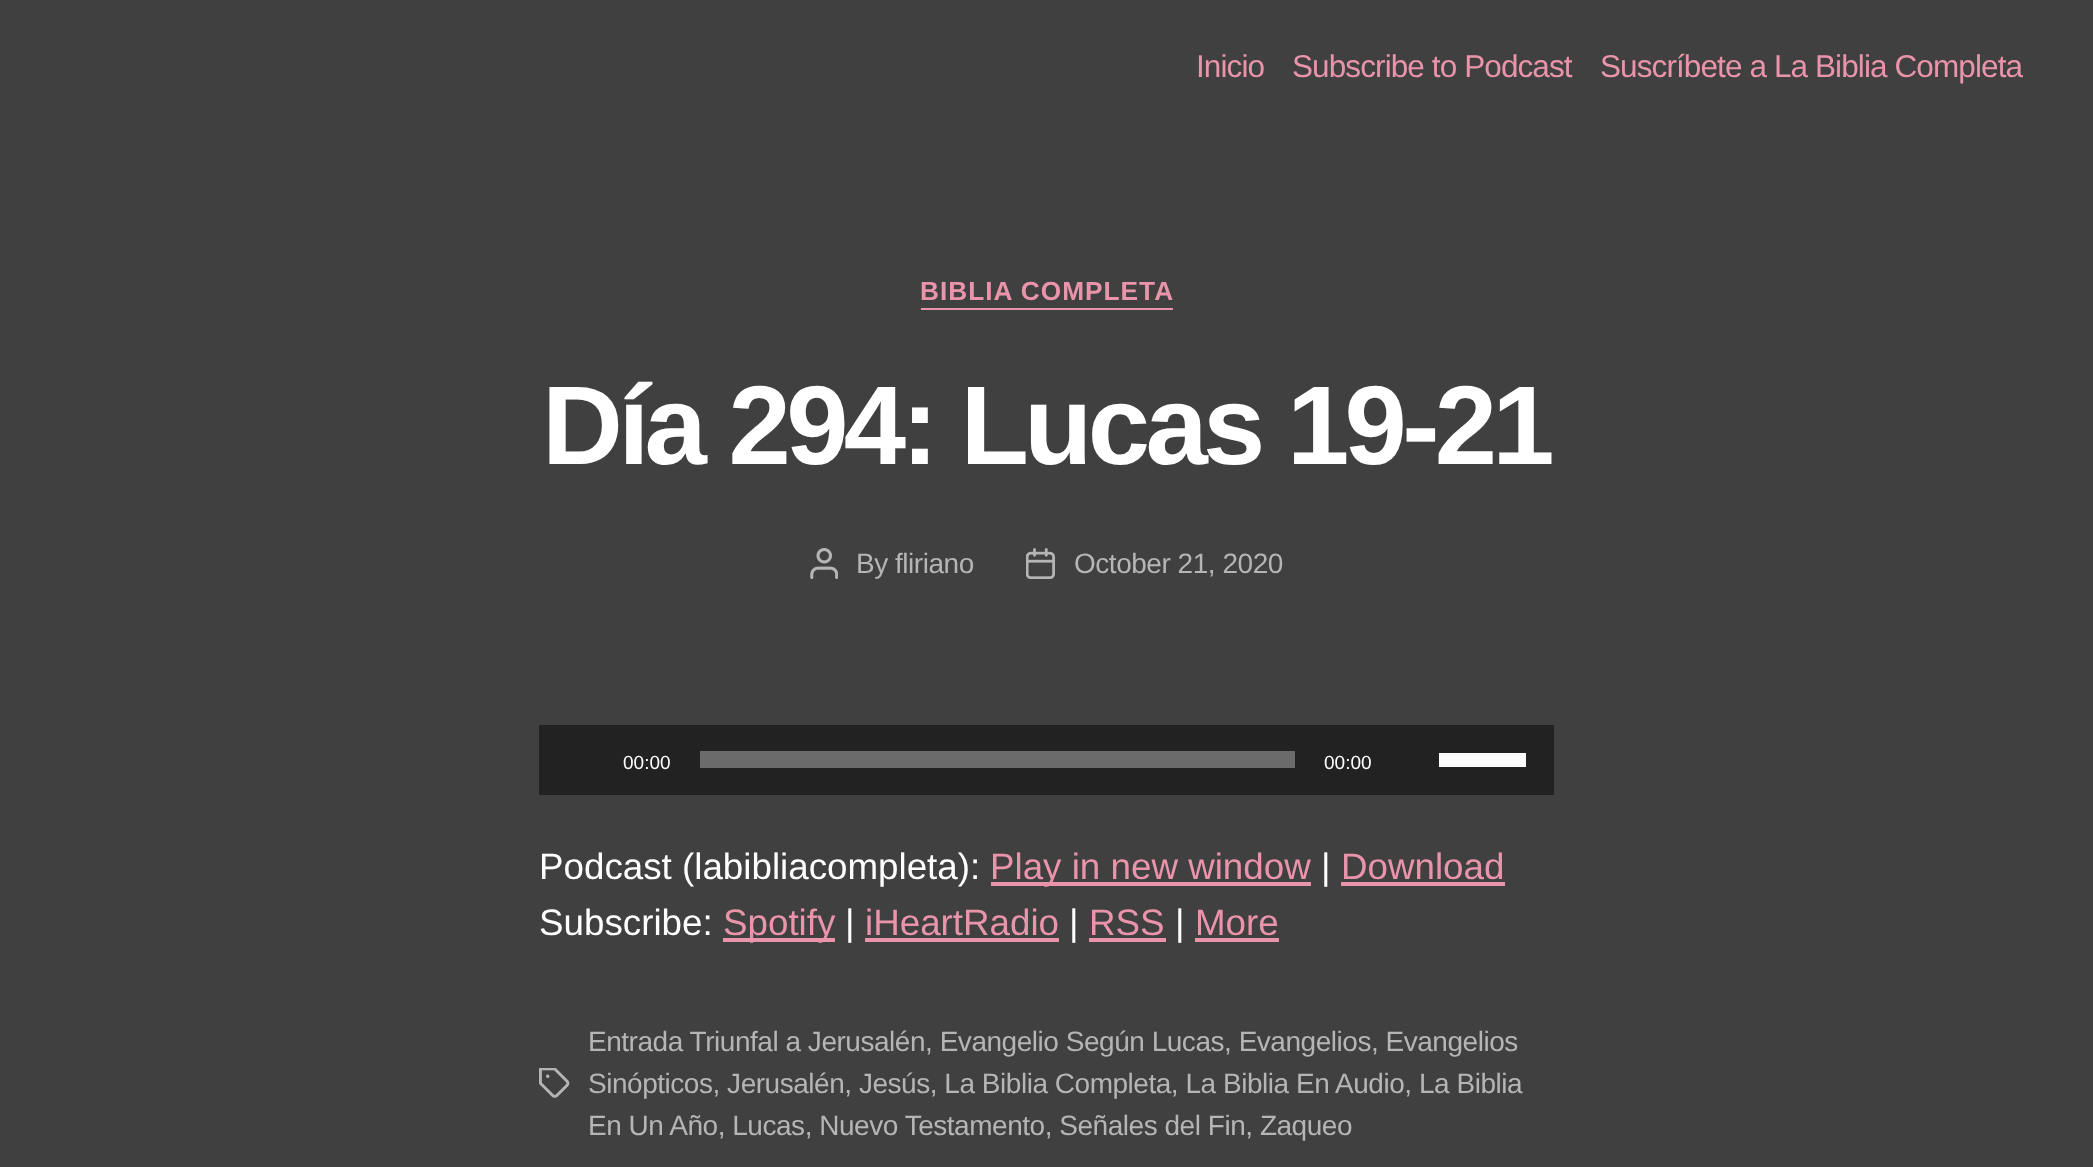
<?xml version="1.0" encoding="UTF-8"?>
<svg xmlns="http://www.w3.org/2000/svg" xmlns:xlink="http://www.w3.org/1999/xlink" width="2093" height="1167">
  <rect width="100%" height="100%" fill="#404040" />
  <rect x="921" y="308" width="252" height="2" fill="#e994ab" />
  <image x="810" y="548" width="28" height="31" xlink:href="image1.png" />
  <image x="1026" y="548" width="29" height="31" xlink:href="image2.png" />
  <rect x="539" y="725" width="1015" height="70" fill="#222222" />
  <rect x="700" y="751" width="595" height="17" fill="#6b6b6b" />
  <rect x="1439" y="753" width="87" height="14" fill="#ffffff" />
  <rect x="991" y="882" width="320" height="4" fill="#e994ab" />
  <rect x="1341" y="882" width="164" height="4" fill="#e994ab" />
  <rect x="723" y="938" width="112" height="4" fill="#e994ab" />
  <rect x="865" y="938" width="194" height="4" fill="#e994ab" />
  <rect x="1089" y="938" width="77" height="4" fill="#e994ab" />
  <rect x="1195" y="938" width="84" height="4" fill="#e994ab" />
  <image x="539" y="1068" width="31" height="30" xlink:href="image3.png" />
  <text x="1196" y="77" style="font-family: Liberation Sans; font-size: 31.5px; letter-spacing: -0.9px; fill: #e994ab">Inicio</text>
  <text x="1292" y="77" style="font-family: Liberation Sans; font-size: 31.5px; letter-spacing: -0.9px; fill: #e994ab">Subscribe to Podcast</text>
  <text x="1600" y="77" style="font-family: Liberation Sans; font-size: 31.5px; letter-spacing: -0.9px; fill: #e994ab">Suscríbete a La Biblia Completa</text>
  <text x="920" y="300" style="font-family: Liberation Sans; font-size: 26.25px; font-weight: bold; letter-spacing: 1px; fill: #e994ab">BIBLIA COMPLETA</text>
  <text x="542" y="464" style="font-family: Liberation Sans; font-size: 112px; font-weight: bold; letter-spacing: -4.7px; fill: #ffffff">Día 294: Lucas 19-21</text>
  <text x="856" y="573" style="font-family: Liberation Sans; font-size: 28px; letter-spacing: -0.47px; fill: #b5b5b5">By fliriano</text>
  <text x="1074" y="573" style="font-family: Liberation Sans; font-size: 28px; letter-spacing: -0.47px; fill: #b5b5b5">October 21, 2020</text>
  <text x="623" y="769" style="font-family: Liberation Sans; font-size: 19px; fill: #ffffff">00:00</text>
  <text x="1324" y="769" style="font-family: Liberation Sans; font-size: 19px; fill: #ffffff">00:00</text>
  <text x="539" y="879" style="font-family: Liberation Sans; font-size: 36.75px; fill: #ffffff">Podcast (labibliacompleta):</text>
  <text x="990" y="879" style="font-family: Liberation Sans; font-size: 36.75px; fill: #e994ab">Play in new window</text>
  <text x="1321" y="879" style="font-family: Liberation Sans; font-size: 36.75px; fill: #ffffff">|</text>
  <text x="1341" y="879" style="font-family: Liberation Sans; font-size: 36.75px; fill: #e994ab">Download</text>
  <text x="539" y="935" style="font-family: Liberation Sans; font-size: 36.75px; fill: #ffffff">Subscribe:</text>
  <text x="723" y="935" style="font-family: Liberation Sans; font-size: 36.75px; fill: #e994ab">Spotify</text>
  <text x="845" y="935" style="font-family: Liberation Sans; font-size: 36.75px; fill: #ffffff">|</text>
  <text x="865" y="935" style="font-family: Liberation Sans; font-size: 36.75px; fill: #e994ab">iHeartRadio</text>
  <text x="1069" y="935" style="font-family: Liberation Sans; font-size: 36.75px; fill: #ffffff">|</text>
  <text x="1089" y="935" style="font-family: Liberation Sans; font-size: 36.75px; fill: #e994ab">RSS</text>
  <text x="1175" y="935" style="font-family: Liberation Sans; font-size: 36.75px; fill: #ffffff">|</text>
  <text x="1195" y="935" style="font-family: Liberation Sans; font-size: 36.75px; fill: #e994ab">More</text>
  <text x="588" y="1051" style="font-family: Liberation Sans; font-size: 28px; letter-spacing: -0.47px; fill: #b5b5b5">Entrada Triunfal a Jerusalén, Evangelio Según Lucas, Evangelios, Evangelios</text>
  <text x="588" y="1093" style="font-family: Liberation Sans; font-size: 28px; letter-spacing: -0.47px; fill: #b5b5b5">Sinópticos, Jerusalén, Jesús, La Biblia Completa, La Biblia En Audio, La Biblia</text>
  <text x="588" y="1135" style="font-family: Liberation Sans; font-size: 28px; letter-spacing: -0.47px; fill: #b5b5b5">En Un Año, Lucas, Nuevo Testamento, Señales del Fin, Zaqueo</text>
</svg>
